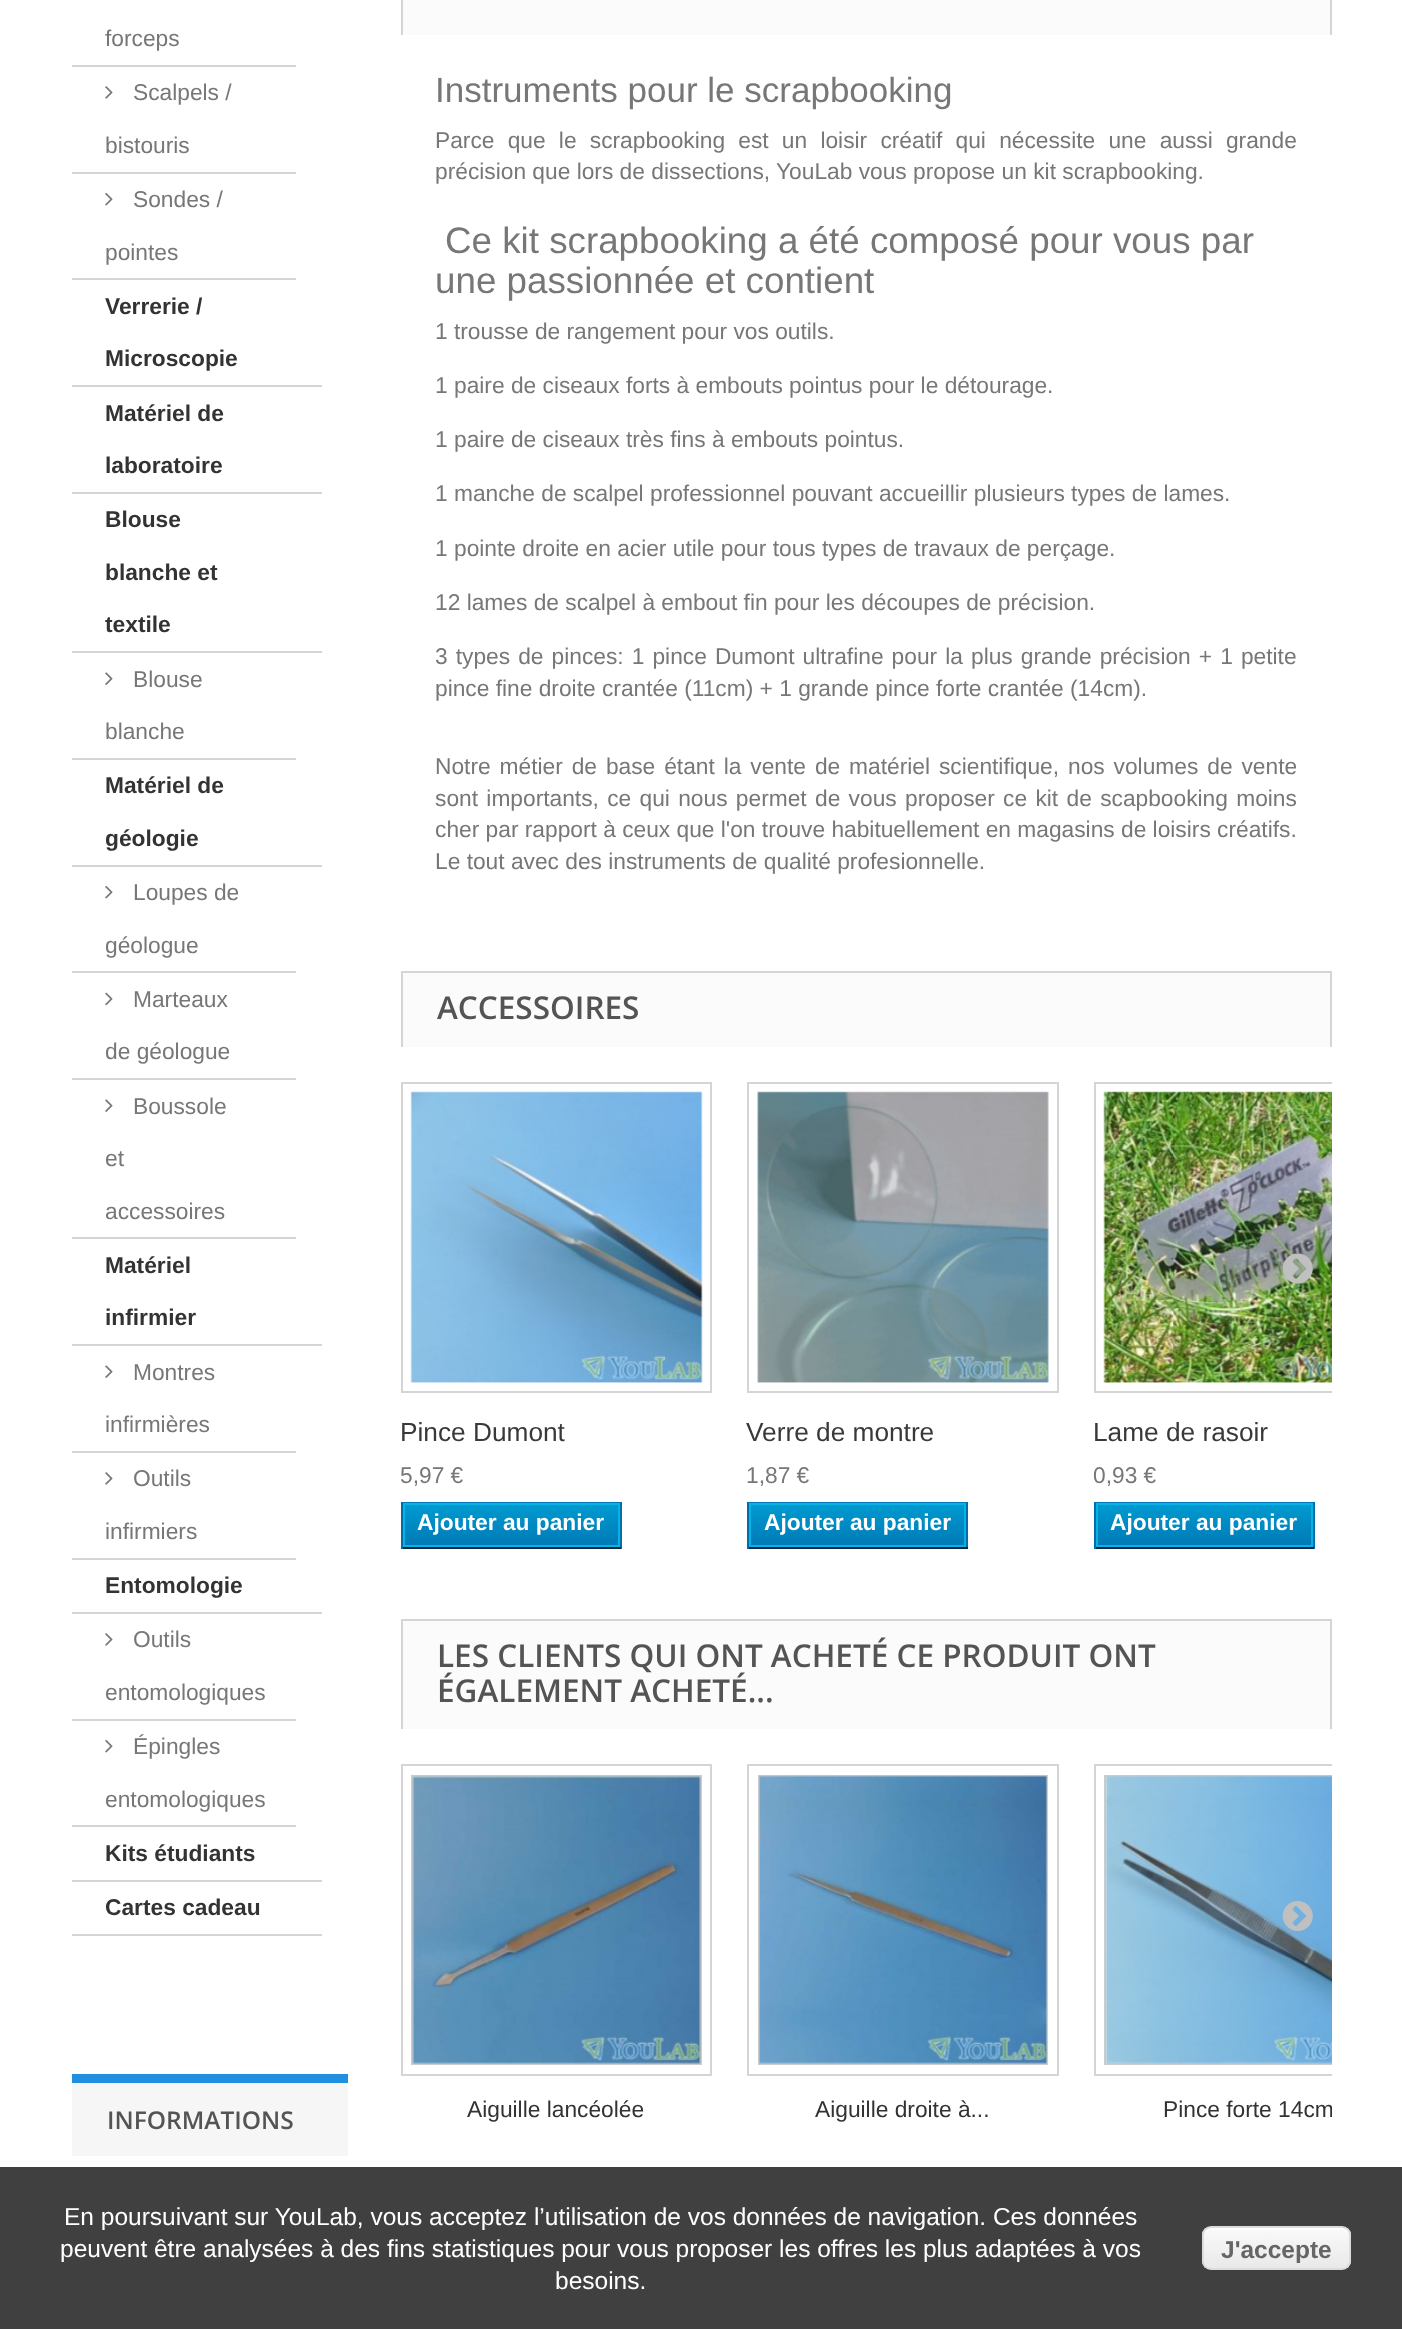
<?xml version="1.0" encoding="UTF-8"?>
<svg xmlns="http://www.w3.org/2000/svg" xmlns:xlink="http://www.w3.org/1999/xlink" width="1402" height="2329">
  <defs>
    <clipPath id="clip1"><rect x="401" y="1082" width="931" height="467" /></clipPath>
    <linearGradient id="g1" gradientUnits="userSpaceOnUse" x1="511" y1="1505" x2="511" y2="1545"><stop offset="0" stop-color="#009ad0" /><stop offset="1" stop-color="#007ab7" /></linearGradient>
    <linearGradient id="g2" gradientUnits="userSpaceOnUse" x1="858" y1="1505" x2="858" y2="1545"><stop offset="0" stop-color="#009ad0" /><stop offset="1" stop-color="#007ab7" /></linearGradient>
    <linearGradient id="g3" gradientUnits="userSpaceOnUse" x1="1204" y1="1505" x2="1204" y2="1545"><stop offset="0" stop-color="#009ad0" /><stop offset="1" stop-color="#007ab7" /></linearGradient>
    <clipPath id="clip2"><rect x="401" y="1764" width="931" height="378" /></clipPath>
    <clipPath id="clip3"><rect x="1202" y="2226" width="149" height="44" rx="9" /></clipPath>
    <linearGradient id="g4" gradientUnits="userSpaceOnUse" x1="1204" y1="2228" x2="1204" y2="2268"><stop offset="0.05" stop-color="#f9f9f9" /><stop offset="1" stop-color="#e9e9e9" /></linearGradient>
  </defs>
  <rect width="100%" height="100%" fill="#ffffff" />
  <rect x="72" y="65" width="224" height="2" fill="#d6d4d4" />
  <rect x="72" y="172" width="224" height="2" fill="#d6d4d4" />
  <image x="105" y="86" width="8" height="13" xlink:href="image1.png" />
  <rect x="72" y="278" width="224" height="2" fill="#d6d4d4" />
  <image x="105" y="192" width="8" height="14" xlink:href="image2.png" />
  <rect x="72" y="385" width="250" height="2" fill="#d6d4d4" />
  <rect x="72" y="492" width="250" height="2" fill="#d6d4d4" />
  <rect x="72" y="651" width="250" height="2" fill="#d6d4d4" />
  <rect x="72" y="758" width="224" height="2" fill="#d6d4d4" />
  <image x="105" y="672" width="8" height="13" xlink:href="image3.png" />
  <rect x="72" y="865" width="250" height="2" fill="#d6d4d4" />
  <rect x="72" y="971" width="224" height="2" fill="#d6d4d4" />
  <image x="105" y="885" width="8" height="14" xlink:href="image2.png" />
  <rect x="72" y="1078" width="224" height="2" fill="#d6d4d4" />
  <image x="105" y="992" width="8" height="14" xlink:href="image4.png" />
  <rect x="72" y="1237" width="224" height="2" fill="#d6d4d4" />
  <image x="105" y="1099" width="8" height="13" xlink:href="image3.png" />
  <rect x="72" y="1344" width="250" height="2" fill="#d6d4d4" />
  <rect x="72" y="1451" width="224" height="2" fill="#d6d4d4" />
  <image x="105" y="1365" width="8" height="13" xlink:href="image3.png" />
  <rect x="72" y="1558" width="224" height="2" fill="#d6d4d4" />
  <image x="105" y="1472" width="8" height="13" xlink:href="image1.png" />
  <rect x="72" y="1612" width="250" height="2" fill="#d6d4d4" />
  <rect x="72" y="1719" width="224" height="2" fill="#d6d4d4" />
  <image x="105" y="1633" width="8" height="13" xlink:href="image1.png" />
  <rect x="72" y="1825" width="224" height="2" fill="#d6d4d4" />
  <image x="105" y="1739" width="8" height="14" xlink:href="image2.png" />
  <rect x="72" y="1880" width="250" height="2" fill="#d6d4d4" />
  <rect x="72" y="1934" width="250" height="2" fill="#d6d4d4" />
  <rect x="72" y="2083" width="276" height="73" fill="#f6f6f6" />
  <rect x="72" y="2074" width="276" height="9" fill="#218fe0" />
  <rect x="403" width="927" height="35" fill="#fbfbfb" />
  <rect x="1330" width="2" height="35" fill="#d6d4d4" />
  <rect x="401" width="2" height="35" fill="#d6d4d4" />
  <rect x="403" y="973" width="927" height="74" fill="#fbfbfb" />
  <rect x="401" y="971" width="931" height="2" fill="#d6d4d4" />
  <rect x="1330" y="971" width="2" height="76" fill="#d6d4d4" />
  <rect x="401" y="971" width="2" height="76" fill="#d6d4d4" />
  <g clip-path="url(#clip1)">
    <rect x="1095" y="1083" width="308" height="309" fill="none" stroke="#d6d4d4" stroke-width="2" />
  </g>
  <image x="1103" y="1091" width="229" height="292" xlink:href="image8.png" />
  <image x="1282" y="1253" width="31" height="31" xlink:href="image5.png" />
  <rect x="402" y="1083" width="309" height="309" fill="none" stroke="#d6d4d4" stroke-width="2" />
  <image x="410" y="1091" width="293" height="292" xlink:href="image6.png" />
  <rect x="401" y="1502" width="220" height="1" fill="#0079b6" />
  <rect x="620" y="1502" width="2" height="47" fill="#006fa8" />
  <rect x="401" y="1547" width="220" height="2" fill="#012740" />
  <rect x="401" y="1502" width="2" height="47" fill="#006fa8" />
  <rect x="405" y="1505" width="213" height="40" fill="url(#g1)" />
  <rect x="404" y="1504" width="215" height="42" fill="none" stroke="#06b2e6" stroke-width="2" />
  <rect x="748" y="1083" width="310" height="309" fill="none" stroke="#d6d4d4" stroke-width="2" />
  <image x="757" y="1091" width="292" height="292" xlink:href="image7.png" />
  <rect x="747" y="1502" width="221" height="1" fill="#0079b6" />
  <rect x="966" y="1502" width="2" height="47" fill="#006fa8" />
  <rect x="747" y="1547" width="221" height="2" fill="#012740" />
  <rect x="747" y="1502" width="2" height="47" fill="#006fa8" />
  <rect x="751" y="1505" width="213" height="40" fill="url(#g2)" />
  <rect x="750" y="1504" width="215" height="42" fill="none" stroke="#06b2e6" stroke-width="2" />
  <rect x="1094" y="1502" width="220" height="1" fill="#0079b6" />
  <rect x="1313" y="1502" width="2" height="47" fill="#006fa8" />
  <rect x="1094" y="1547" width="220" height="2" fill="#012740" />
  <rect x="1094" y="1502" width="2" height="47" fill="#006fa8" />
  <rect x="1098" y="1505" width="213" height="40" fill="url(#g3)" />
  <rect x="1097" y="1504" width="215" height="42" fill="none" stroke="#06b2e6" stroke-width="2" />
  <rect x="403" y="1621" width="927" height="108" fill="#fbfbfb" />
  <rect x="401" y="1619" width="931" height="2" fill="#d6d4d4" />
  <rect x="1330" y="1619" width="2" height="110" fill="#d6d4d4" />
  <rect x="401" y="1619" width="2" height="110" fill="#d6d4d4" />
  <g clip-path="url(#clip2)">
    <rect x="1095" y="1765" width="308" height="310" fill="none" stroke="#d6d4d4" stroke-width="2" />
    <rect x="1105" y="1776" width="289" height="288" fill="none" stroke="#cccccc" stroke-width="2" />
  </g>
  <image x="1105" y="1775" width="227" height="289" xlink:href="image12.png" />
  <image x="1282" y="1901" width="31" height="30" xlink:href="image9.png" />
  <rect x="402" y="1765" width="309" height="310" fill="none" stroke="#d6d4d4" stroke-width="2" />
  <rect x="412" y="1776" width="289" height="288" fill="none" stroke="#cccccc" stroke-width="2" />
  <image x="412" y="1775" width="289" height="289" xlink:href="image10.png" />
  <rect x="748" y="1765" width="310" height="310" fill="none" stroke="#d6d4d4" stroke-width="2" />
  <rect x="759" y="1776" width="288" height="288" fill="none" stroke="#cccccc" stroke-width="2" />
  <image x="759" y="1775" width="288" height="289" xlink:href="image11.png" />
  <rect y="2167" width="1402" height="162" fill="#404040" />
  <g clip-path="url(#clip3)">
    <rect x="1202" y="2228" width="149" height="40" fill="url(#g4)" />
  </g>
  <path d="M 1211 2230 h 131 c 4 0 7 3 7 6 c 0 -13 -23 -8 -29 -8 h -87 c -6 0 -29 -5 -29 8 c 0 -3 3 -6 7 -6 z" fill="#ffffff" />
  <rect x="1203" y="2227" width="147" height="42" rx="8" fill="none" stroke="#dcdcdc" stroke-width="2" />
  <text x="105" y="46" style="font-family: Liberation Sans; font-size: 22.75px; fill: #777777">forceps</text>
  <text x="133" y="100" style="font-family: Liberation Sans; font-size: 22.75px; fill: #777777">Scalpels /</text>
  <text x="105" y="153" style="font-family: Liberation Sans; font-size: 22.75px; fill: #777777">bistouris</text>
  <text x="133" y="207" style="font-family: Liberation Sans; font-size: 22.75px; fill: #777777">Sondes /</text>
  <text x="105" y="260" style="font-family: Liberation Sans; font-size: 22.75px; fill: #777777">pointes</text>
  <text x="105" y="314" style="font-family: Liberation Sans; font-size: 22.75px; font-weight: bold; fill: #333333">Verrerie /</text>
  <text x="105" y="366" style="font-family: Liberation Sans; font-size: 22.75px; font-weight: bold; fill: #333333">Microscopie</text>
  <text x="105" y="421" style="font-family: Liberation Sans; font-size: 22.75px; font-weight: bold; fill: #333333">Matériel de</text>
  <text x="105" y="473" style="font-family: Liberation Sans; font-size: 22.75px; font-weight: bold; fill: #333333">laboratoire</text>
  <text x="105" y="527" style="font-family: Liberation Sans; font-size: 22.75px; font-weight: bold; fill: #333333">Blouse</text>
  <text x="105" y="580" style="font-family: Liberation Sans; font-size: 22.75px; font-weight: bold; fill: #333333">blanche et</text>
  <text x="105" y="632" style="font-family: Liberation Sans; font-size: 22.75px; font-weight: bold; fill: #333333">textile</text>
  <text x="133" y="687" style="font-family: Liberation Sans; font-size: 22.75px; fill: #777777">Blouse</text>
  <text x="105" y="739" style="font-family: Liberation Sans; font-size: 22.75px; fill: #777777">blanche</text>
  <text x="105" y="793" style="font-family: Liberation Sans; font-size: 22.75px; font-weight: bold; fill: #333333">Matériel de</text>
  <text x="105" y="846" style="font-family: Liberation Sans; font-size: 22.75px; font-weight: bold; fill: #333333">géologie</text>
  <text x="133" y="900" style="font-family: Liberation Sans; font-size: 22.75px; fill: #777777">Loupes de</text>
  <text x="105" y="953" style="font-family: Liberation Sans; font-size: 22.75px; fill: #777777">géologue</text>
  <text x="133" y="1007" style="font-family: Liberation Sans; font-size: 22.75px; fill: #777777">Marteaux</text>
  <text x="105" y="1059" style="font-family: Liberation Sans; font-size: 22.75px; fill: #777777">de géologue</text>
  <text x="133" y="1114" style="font-family: Liberation Sans; font-size: 22.75px; fill: #777777">Boussole</text>
  <text x="105" y="1166" style="font-family: Liberation Sans; font-size: 22.75px; fill: #777777">et</text>
  <text x="105" y="1219" style="font-family: Liberation Sans; font-size: 22.75px; fill: #777777">accessoires</text>
  <text x="105" y="1273" style="font-family: Liberation Sans; font-size: 22.75px; font-weight: bold; fill: #333333">Matériel</text>
  <text x="105" y="1325" style="font-family: Liberation Sans; font-size: 22.75px; font-weight: bold; fill: #333333">infirmier</text>
  <text x="133" y="1380" style="font-family: Liberation Sans; font-size: 22.75px; fill: #777777">Montres</text>
  <text x="105" y="1432" style="font-family: Liberation Sans; font-size: 22.75px; fill: #777777">infirmières</text>
  <text x="133" y="1486" style="font-family: Liberation Sans; font-size: 22.75px; fill: #777777">Outils</text>
  <text x="105" y="1539" style="font-family: Liberation Sans; font-size: 22.75px; fill: #777777">infirmiers</text>
  <text x="105" y="1593" style="font-family: Liberation Sans; font-size: 22.75px; font-weight: bold; fill: #333333">Entomologie</text>
  <text x="133" y="1647" style="font-family: Liberation Sans; font-size: 22.75px; fill: #777777">Outils</text>
  <text x="105" y="1700" style="font-family: Liberation Sans; font-size: 22.75px; fill: #777777">entomologiques</text>
  <text x="133" y="1754" style="font-family: Liberation Sans; font-size: 22.75px; fill: #777777">Épingles</text>
  <text x="105" y="1807" style="font-family: Liberation Sans; font-size: 22.75px; fill: #777777">entomologiques</text>
  <text x="105" y="1861" style="font-family: Liberation Sans; font-size: 22.75px; font-weight: bold; fill: #333333">Kits étudiants</text>
  <text x="105" y="1915" style="font-family: Liberation Sans; font-size: 22.75px; font-weight: bold; fill: #333333">Cartes cadeau</text>
  <text x="107" y="2129" style="font-family: Open Sans; font-size: 24.5px; font-weight: 600; fill: #555454">INFORMATIONS</text>
  <text x="435" y="102" style="font-family: Liberation Sans; font-size: 35px; fill: #777777">Instruments pour le scrapbooking</text>
  <text x="435" y="148" word-spacing="6.9" style="font-family: Liberation Sans; font-size: 22.75px; fill: #777777">Parce que le scrapbooking est un loisir créatif qui nécessite une aussi grande</text>
  <text x="435" y="179" style="font-family: Liberation Sans; font-size: 22.75px; fill: #777777">précision que lors de dissections, YouLab vous propose un kit scrapbooking.</text>
  <text x="445" y="253" style="font-family: Liberation Sans; font-size: 36.75px; fill: #777777">Ce kit scrapbooking a été composé pour vous par</text>
  <text x="435" y="293" style="font-family: Liberation Sans; font-size: 36.75px; fill: #777777">une passionnée et contient</text>
  <text x="435" y="339" style="font-family: Liberation Sans; font-size: 22.75px; fill: #777777">1 trousse de rangement pour vos outils.</text>
  <text x="435" y="393" style="font-family: Liberation Sans; font-size: 22.75px; fill: #777777">1 paire de ciseaux forts à embouts pointus pour le détourage.</text>
  <text x="435" y="447" style="font-family: Liberation Sans; font-size: 22.75px; fill: #777777">1 paire de ciseaux très fins à embouts pointus.</text>
  <text x="435" y="501" style="font-family: Liberation Sans; font-size: 22.75px; fill: #777777">1 manche de scalpel professionnel pouvant accueillir plusieurs types de lames.</text>
  <text x="435" y="556" style="font-family: Liberation Sans; font-size: 22.75px; fill: #777777">1 pointe droite en acier utile pour tous types de travaux de perçage.</text>
  <text x="435" y="610" style="font-family: Liberation Sans; font-size: 22.75px; fill: #777777">12 lames de scalpel à embout fin pour les découpes de précision.</text>
  <text x="435" y="664" word-spacing="1.75" style="font-family: Liberation Sans; font-size: 22.75px; fill: #777777">3 types de pinces: 1 pince Dumont ultrafine pour la plus grande précision + 1 petite</text>
  <text x="435" y="696" style="font-family: Liberation Sans; font-size: 22.75px; fill: #777777">pince fine droite crantée (11cm) + 1 grande pince forte crantée (14cm).</text>
  <text x="435" y="774" word-spacing="2.6" style="font-family: Liberation Sans; font-size: 22.75px; fill: #777777">Notre métier de base étant la vente de matériel scientifique, nos volumes de vente</text>
  <text x="435" y="806" word-spacing="2" style="font-family: Liberation Sans; font-size: 22.75px; fill: #777777">sont importants, ce qui nous permet de vous proposer ce kit de scapbooking moins</text>
  <text x="435" y="837" style="font-family: Liberation Sans; font-size: 22.75px; fill: #777777">cher par rapport à ceux que l'on trouve habituellement en magasins de loisirs créatifs.</text>
  <text x="435" y="869" style="font-family: Liberation Sans; font-size: 22.75px; fill: #777777">Le tout avec des instruments de qualité profesionnelle.</text>
  <text x="437" y="1019" style="font-family: Open Sans; font-size: 31.5px; font-weight: 600; fill: #555454">ACCESSOIRES</text>
  <text x="400" y="1441" style="font-family: Liberation Sans; font-size: 26.25px; fill: #3a3939">Pince Dumont</text>
  <text x="400" y="1483" style="font-family: Liberation Sans; font-size: 22.75px; fill: #777777">5,97 €</text>
  <text x="417" y="1530" style="font-family: Liberation Sans; font-size: 22.75px; font-weight: bold; fill: #ffffff">Ajouter au panier</text>
  <text x="746" y="1441" style="font-family: Liberation Sans; font-size: 26.25px; fill: #3a3939">Verre de montre</text>
  <text x="746" y="1483" style="font-family: Liberation Sans; font-size: 22.75px; fill: #777777">1,87 €</text>
  <text x="764" y="1530" style="font-family: Liberation Sans; font-size: 22.75px; font-weight: bold; fill: #ffffff">Ajouter au panier</text>
  <text x="1093" y="1441" style="font-family: Liberation Sans; font-size: 26.25px; fill: #3a3939">Lame de rasoir</text>
  <text x="1093" y="1483" style="font-family: Liberation Sans; font-size: 22.75px; fill: #777777">0,93 €</text>
  <text x="1110" y="1530" style="font-family: Liberation Sans; font-size: 22.75px; font-weight: bold; fill: #ffffff">Ajouter au panier</text>
  <text x="437" y="1667" style="font-family: Open Sans; font-size: 31.5px; font-weight: 600; fill: #555454">LES CLIENTS QUI ONT ACHETÉ CE PRODUIT ONT</text>
  <text x="437" y="1702" style="font-family: Open Sans; font-size: 31.5px; font-weight: 600; fill: #555454">ÉGALEMENT ACHETÉ...</text>
  <text x="467" y="2117" style="font-family: Liberation Sans; font-size: 22.75px; fill: #333333">Aiguille lancéolée</text>
  <text x="815" y="2117" style="font-family: Liberation Sans; font-size: 22.75px; fill: #333333">Aiguille droite à...</text>
  <g clip-path="url(#clip2)">
    <text x="1163" y="2117" style="font-family: Liberation Sans; font-size: 22.75px; fill: #333333">Pince forte 14cm</text>
  </g>
  <text x="64" y="2225" style="font-family: Liberation Sans; font-size: 24.5px; fill: #ffffff">En poursuivant sur YouLab, vous acceptez l’utilisation de vos données de navigation. Ces données</text>
  <text x="60" y="2257" style="font-family: Liberation Sans; font-size: 24.5px; fill: #ffffff">peuvent être analysées à des fins statistiques pour vous proposer les offres les plus adaptées à vos</text>
  <text x="555" y="2289" style="font-family: Liberation Sans; font-size: 24.5px; fill: #ffffff">besoins.</text>
  <text x="1221" y="2258" style="font-family: Liberation Sans; font-size: 24.5px; font-weight: bold; fill: #666666">J'accepte</text>
</svg>
